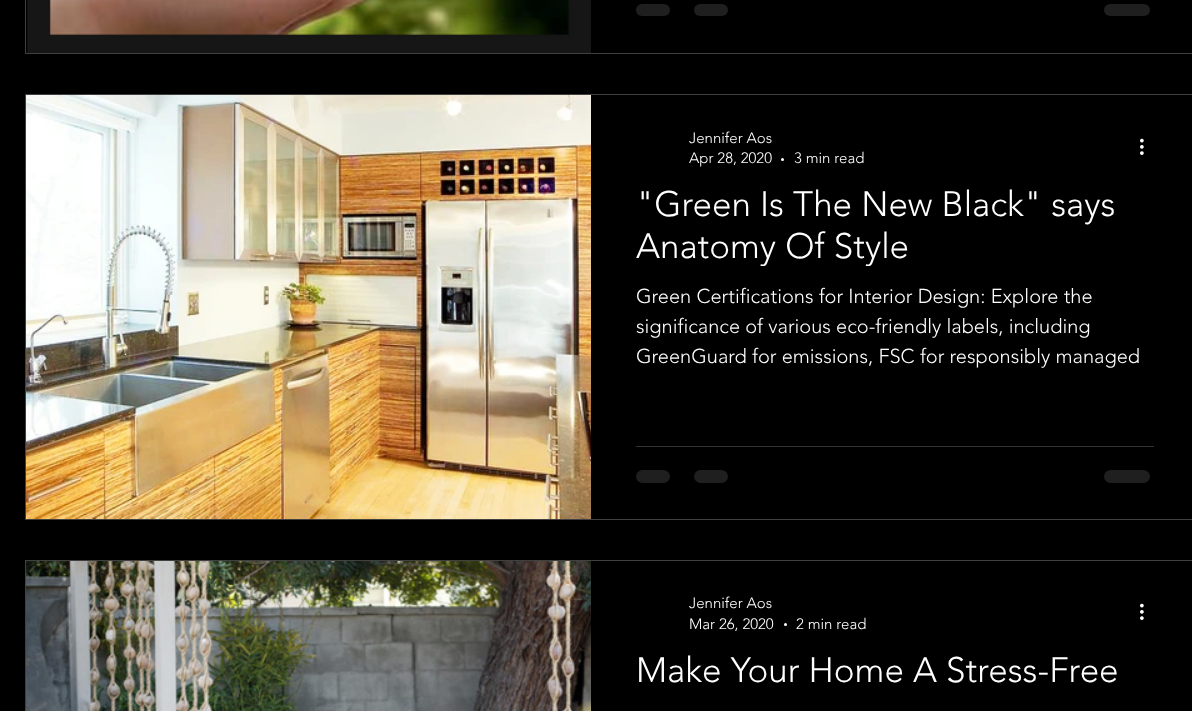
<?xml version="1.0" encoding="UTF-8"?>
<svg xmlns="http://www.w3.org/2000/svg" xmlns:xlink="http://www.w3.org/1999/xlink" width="1192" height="711">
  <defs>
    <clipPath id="clip1"><rect x="636" y="184" width="518" height="82" /></clipPath>
  </defs>
  <rect width="100%" height="100%" fill="#000000" />
  <rect x="25.5" y="-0.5" width="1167" height="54" fill="none" stroke="#404040" />
  <image x="26" y="0" width="565" height="53" xlink:href="image1.png" />
  <rect x="636" y="4" width="34" height="12" rx="6" fill="#1f1f1f" />
  <rect x="694" y="4" width="34" height="12" rx="6" fill="#1f1f1f" />
  <rect x="1104" y="4" width="46" height="12" rx="6" fill="#1f1f1f" />
  <rect x="25.5" y="94.5" width="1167" height="425" fill="none" stroke="#404040" />
  <image x="26" y="95" width="565" height="424" xlink:href="image2.png" />
  <circle cx="782.5" cy="159.5" r="1.5" fill="#ffffff" />
  <image x="1140" y="138" width="4" height="17" xlink:href="image3.png" />
  <rect x="636" y="446" width="518" height="1" fill="#333333" />
  <rect x="636" y="470" width="34" height="13" rx="6.5" fill="#1f1f1f" />
  <rect x="694" y="470" width="34" height="13" rx="6.5" fill="#1f1f1f" />
  <rect x="1104" y="470" width="46" height="13" rx="6.5" fill="#1f1f1f" />
  <rect x="25.5" y="560.5" width="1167" height="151" fill="none" stroke="#404040" />
  <image x="26" y="561" width="565" height="150" xlink:href="image4.png" />
  <circle cx="785.5" cy="624.5" r="1.5" fill="#ffffff" />
  <image x="1140" y="603" width="4" height="17" xlink:href="image3.png" />
  <text x="689" y="143" style="font-family: 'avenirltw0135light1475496'; font-size: 15px; font-weight: 300; fill: #ffffff">Jennifer Aos</text>
  <text x="689" y="163" style="font-family: 'avenirltw0135light1475496'; font-size: 15px; font-weight: 300; fill: #ffffff">Apr 28, 2020</text>
  <text x="794" y="163" style="font-family: 'avenirltw0135light1475496'; font-size: 15px; font-weight: 300; fill: #ffffff">3 min read</text>
  <text x="636" y="216" style="font-family: 'avenirltw0135light1475496'; font-size: 35px; font-weight: 300; fill: #ffffff">"Green Is The New Black" says</text>
  <g clip-path="url(#clip1)">
    <text x="636" y="258" style="font-family: 'avenirltw0135light1475496'; font-size: 35px; font-weight: 300; fill: #ffffff">Anatomy Of Style</text>
  </g>
  <text x="636" y="303" style="font-family: 'avenirltw0135light1475496'; font-size: 20px; font-weight: 300; fill: #ffffff">Green Certifications for Interior Design: Explore the</text>
  <text x="636" y="333" style="font-family: 'avenirltw0135light1475496'; font-size: 20px; font-weight: 300; fill: #ffffff">significance of various eco-friendly labels, including</text>
  <text x="636" y="363" style="font-family: 'avenirltw0135light1475496'; font-size: 20px; font-weight: 300; fill: #ffffff">GreenGuard for emissions, FSC for responsibly managed</text>
  <text x="689" y="608" style="font-family: 'avenirltw0135light1475496'; font-size: 15px; font-weight: 300; fill: #ffffff">Jennifer Aos</text>
  <text x="689" y="629" style="font-family: 'avenirltw0135light1475496'; font-size: 15px; font-weight: 300; fill: #ffffff">Mar 26, 2020</text>
  <text x="796" y="629" style="font-family: 'avenirltw0135light1475496'; font-size: 15px; font-weight: 300; fill: #ffffff">2 min read</text>
  <text x="636" y="682" style="font-family: 'avenirltw0135light1475496'; font-size: 35px; font-weight: 300; fill: #ffffff">Make Your Home A Stress-Free</text>
</svg>
